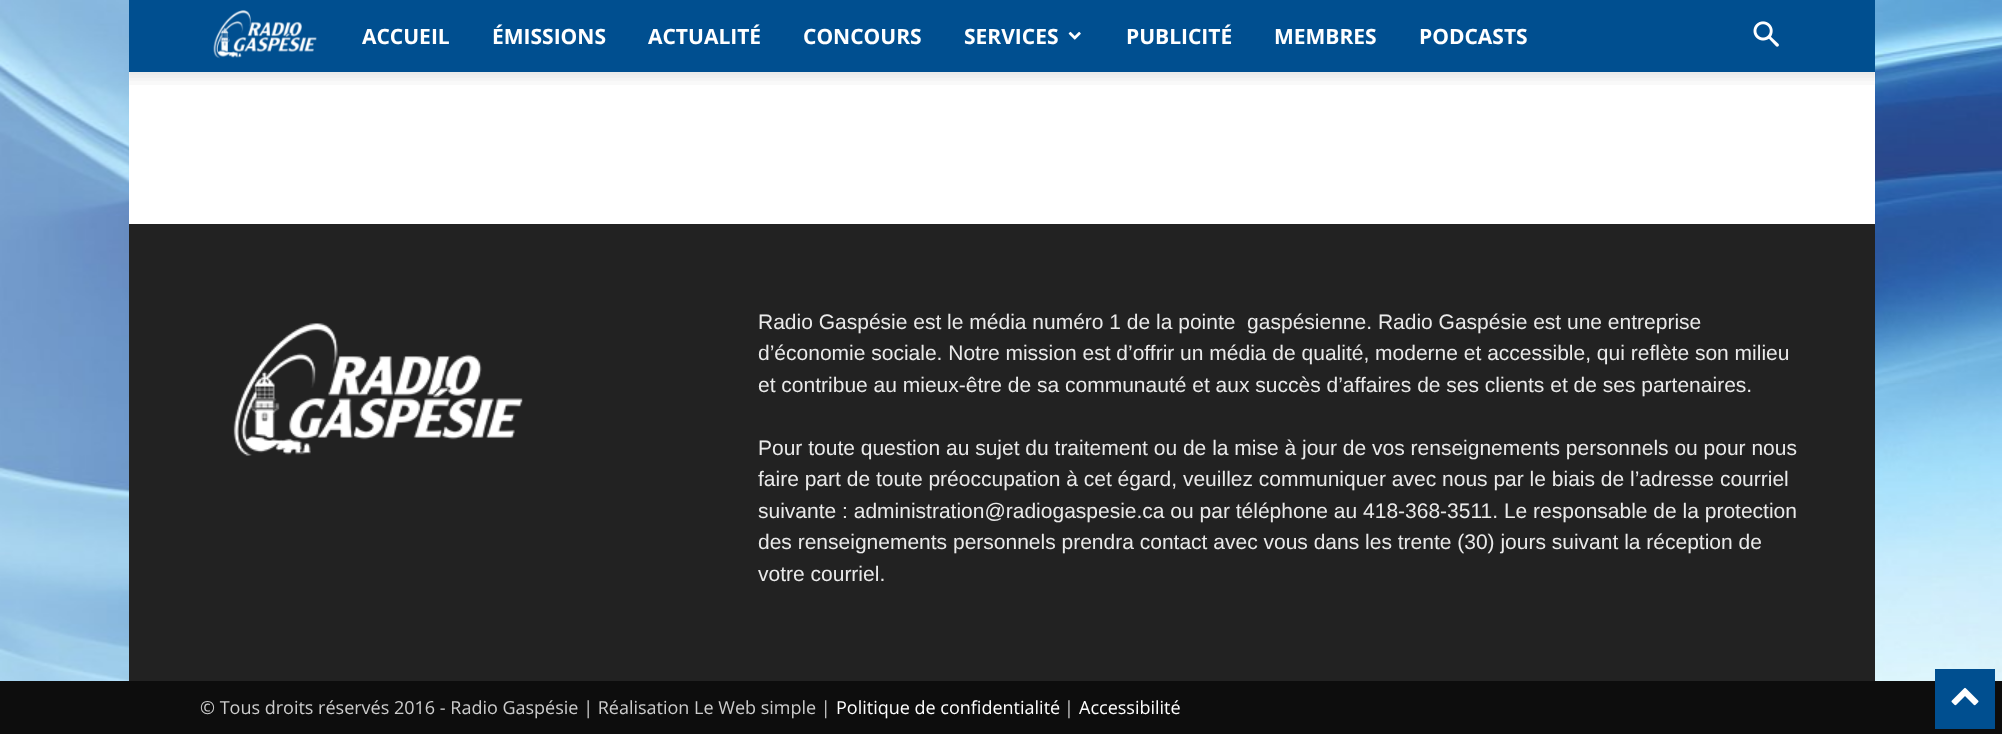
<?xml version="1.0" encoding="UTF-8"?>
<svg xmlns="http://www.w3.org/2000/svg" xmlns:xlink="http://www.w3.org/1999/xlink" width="2002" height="734">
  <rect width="100%" height="100%" fill="#ffffff" />
  <image x="0" y="0" width="2002" height="681" xlink:href="image1.png" />
  <rect x="129" width="1746" height="72" fill="#004f90" />
  <image x="213" y="10" width="104" height="49" xlink:href="image2.png" />
  <image x="1068" y="31" width="13" height="9" xlink:href="image3.png" />
  <image x="1753" y="21" width="26" height="26" xlink:href="image4.png" />
  <rect x="129" y="72" width="1746" height="152" fill="#ffffff" />
  <image x="129" y="72" width="1747" height="13" xlink:href="image5.png" />
  <rect x="129" y="224" width="1746" height="457" fill="#222222" />
  <image x="233" y="323" width="290" height="133" xlink:href="image6.png" />
  <rect y="681" width="2002" height="53" fill="#0d0d0d" />
  <rect x="1935" y="669" width="60" height="60" fill="#004f90" />
  <image x="1951" y="687" width="28" height="19" xlink:href="image7.png" />
  <text x="362" y="44" style="font-family: Open Sans; font-size: 21px; font-weight: bold; fill: #ffffff">ACCUEIL</text>
  <text x="492" y="44" style="font-family: Open Sans; font-size: 21px; font-weight: bold; fill: #ffffff">ÉMISSIONS</text>
  <text x="648" y="44" style="font-family: Open Sans; font-size: 21px; font-weight: bold; fill: #ffffff">ACTUALITÉ</text>
  <text x="803" y="44" style="font-family: Open Sans; font-size: 21px; font-weight: bold; fill: #ffffff">CONCOURS</text>
  <text x="964" y="44" style="font-family: Open Sans; font-size: 21px; font-weight: bold; fill: #ffffff">SERVICES</text>
  <text x="1126" y="44" style="font-family: Open Sans; font-size: 21px; font-weight: bold; fill: #ffffff">PUBLICITÉ</text>
  <text x="1274" y="44" style="font-family: Open Sans; font-size: 21px; font-weight: bold; fill: #ffffff">MEMBRES</text>
  <text x="1419" y="44" style="font-family: Open Sans; font-size: 21px; font-weight: bold; fill: #ffffff">PODCASTS</text>
  <text x="758" y="329" style="font-family: Liberation Sans; font-size: 21px; fill: #eaeaea" xml:space="preserve">Radio Gaspésie est le média numéro 1 de la pointe  gaspésienne. Radio Gaspésie est une entreprise</text>
  <text x="758" y="360" style="font-family: Liberation Sans; font-size: 21px; fill: #eaeaea">d’économie sociale. Notre mission est d’offrir un média de qualité, moderne et accessible, qui reflète son milieu</text>
  <text x="758" y="392" style="font-family: Liberation Sans; font-size: 21px; fill: #eaeaea">et contribue au mieux-être de sa communauté et aux succès d’affaires de ses clients et de ses partenaires.</text>
  <text x="758" y="455" style="font-family: Liberation Sans; font-size: 21px; fill: #eaeaea">Pour toute question au sujet du traitement ou de la mise à jour de vos renseignements personnels ou pour nous</text>
  <text x="758" y="486" style="font-family: Liberation Sans; font-size: 21px; fill: #eaeaea">faire part de toute préoccupation à cet égard, veuillez communiquer avec nous par le biais de l’adresse courriel</text>
  <text x="758" y="518" style="font-family: Liberation Sans; font-size: 21px; fill: #eaeaea">suivante : administration@radiogaspesie.ca ou par téléphone au 418-368-3511. Le responsable de la protection</text>
  <text x="758" y="549" style="font-family: Liberation Sans; font-size: 21px; fill: #eaeaea">des renseignements personnels prendra contact avec vous dans les trente (30) jours suivant la réception de</text>
  <text x="758" y="581" style="font-family: Liberation Sans; font-size: 21px; fill: #eaeaea">votre courriel.</text>
  <text x="200" y="714" style="font-family: Open Sans; font-size: 18px; fill: #cccccc">© Tous droits réservés 2016 - Radio Gaspésie | Réalisation Le Web simple |</text>
  <text x="836" y="714" style="font-family: Open Sans; font-size: 18px; fill: #ffffff">Politique de confidentialité</text>
  <text x="1064" y="714" style="font-family: Open Sans; font-size: 18px; fill: #cccccc">|</text>
  <text x="1079" y="714" style="font-family: Open Sans; font-size: 18px; fill: #ffffff">Accessibilité</text>
</svg>
